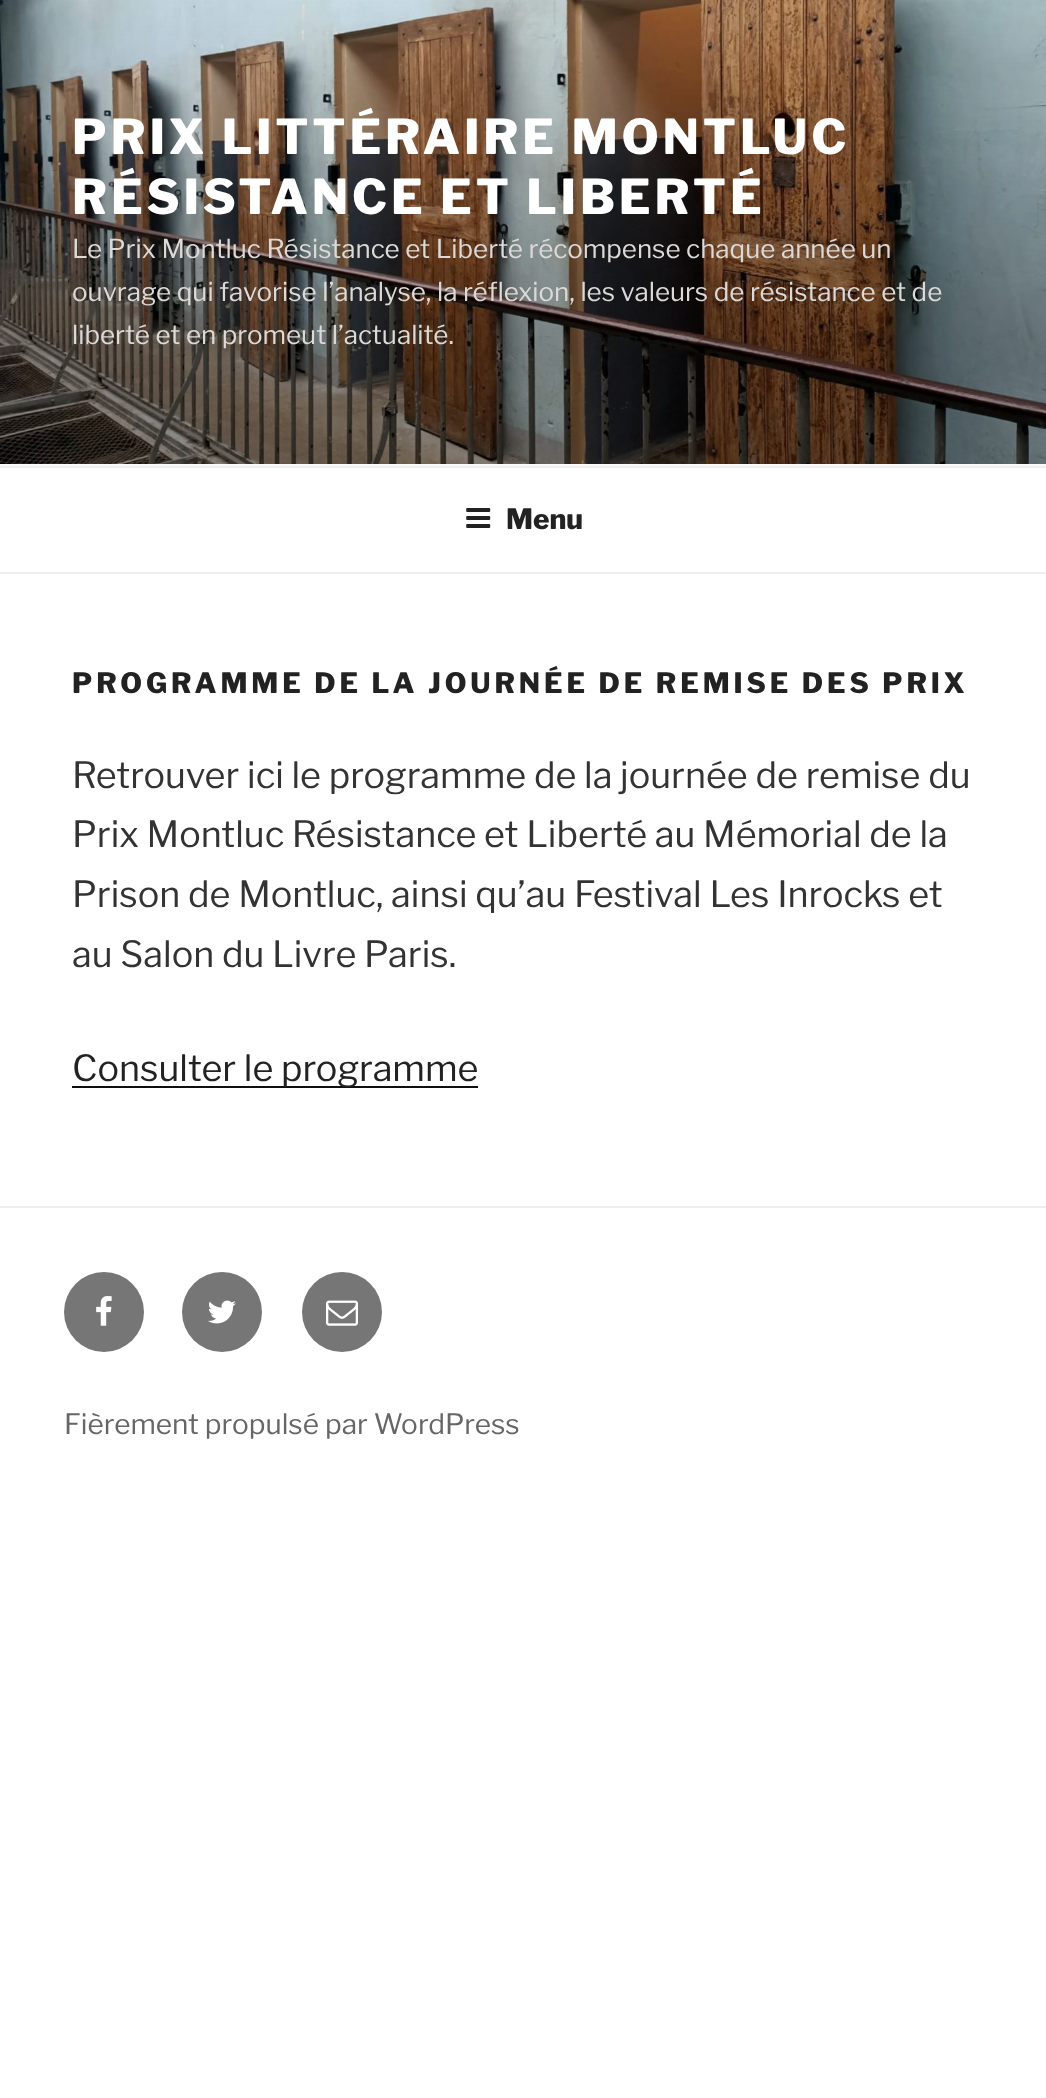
<?xml version="1.0" encoding="UTF-8"?>
<svg xmlns="http://www.w3.org/2000/svg" xmlns:xlink="http://www.w3.org/1999/xlink" width="1046" height="2098">
  <rect width="100%" height="100%" fill="#ffffff" />
  <rect y="464" width="1046" height="2" fill="#fafafa" />
  <image x="0" y="0" width="1046" height="464" xlink:href="image1.png" />
  <rect y="466" width="1046" height="2" fill="#eeeeee" />
  <rect y="572" width="1046" height="2" fill="#eeeeee" />
  <image x="466" y="508" width="25" height="20" xlink:href="image2.png" />
  <rect x="72" y="1086" width="406" height="2" fill="#0f0f0f" />
  <rect y="1206" width="1046" height="2" fill="#eeeeee" />
  <circle cx="104" cy="1312" r="40" fill="#767676" />
  <image x="96" y="1296" width="16" height="30" xlink:href="image3.png" />
  <circle cx="222" cy="1312" r="40" fill="#767676" />
  <image x="208" y="1300" width="28" height="24" xlink:href="image4.png" />
  <circle cx="342" cy="1312" r="40" fill="#767676" />
  <image x="326" y="1300" width="32" height="26" xlink:href="image5.png" />
  <text x="72" y="154" style="font-family: Libre Franklin; font-size: 48px; font-weight: 800; letter-spacing: 3.8px; fill: #ffffff">PRIX LITTÉRAIRE MONTLUC</text>
  <text x="72" y="214" style="font-family: Libre Franklin; font-size: 48px; font-weight: 800; letter-spacing: 3.8px; fill: #ffffff">RÉSISTANCE ET LIBERTÉ</text>
  <text x="72" y="258" style="font-family: Libre Franklin; font-size: 26px; fill: #dcd9d7">Le Prix Montluc Résistance et Liberté récompense chaque année un</text>
  <text x="72" y="301" style="font-family: Libre Franklin; font-size: 26px; fill: #dcd9d7">ouvrage qui favorise l’analyse, la réflexion, les valeurs de résistance et de</text>
  <text x="72" y="344" style="font-family: Libre Franklin; font-size: 26px; fill: #dcd9d7">liberté et en promeut l’actualité.</text>
  <text x="506" y="529" style="font-family: Libre Franklin; font-size: 28px; font-weight: 800; fill: #222222">Menu</text>
  <text x="72" y="693" style="font-family: Libre Franklin; font-size: 28px; font-weight: 800; letter-spacing: 3.9px; fill: #222222">PROGRAMME DE LA JOURNÉE DE REMISE DES PRIX</text>
  <text x="72" y="788" style="font-family: Libre Franklin; font-size: 36px; fill: #333333">Retrouver ici le programme de la journée de remise du</text>
  <text x="72" y="847" style="font-family: Libre Franklin; font-size: 36px; fill: #333333">Prix Montluc Résistance et Liberté au Mémorial de la</text>
  <text x="72" y="907" style="font-family: Libre Franklin; font-size: 36px; fill: #333333">Prison de Montluc, ainsi qu’au Festival Les Inrocks et</text>
  <text x="72" y="967" style="font-family: Libre Franklin; font-size: 36px; fill: #333333">au Salon du Livre Paris.</text>
  <text x="72" y="1081" style="font-family: Libre Franklin; font-size: 36px; fill: #222222">Consulter le programme</text>
  <text x="64" y="1434" style="font-family: Libre Franklin; font-size: 28px; fill: #666666">Fièrement propulsé par WordPress</text>
</svg>
